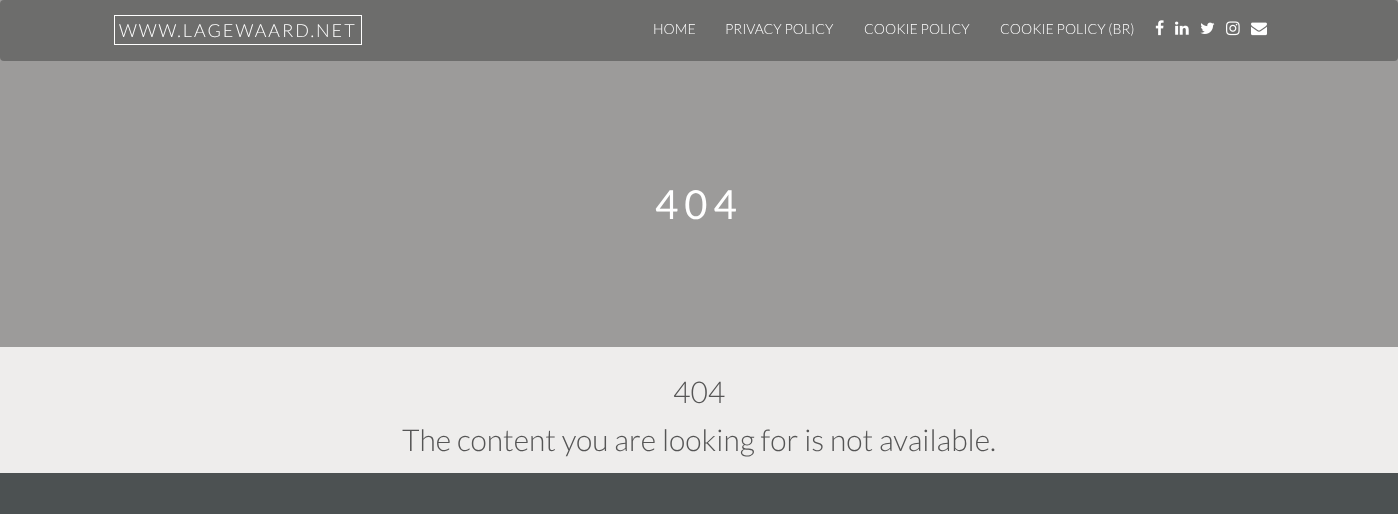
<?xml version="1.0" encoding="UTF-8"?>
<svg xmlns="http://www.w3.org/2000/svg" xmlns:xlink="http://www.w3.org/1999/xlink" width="1398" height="514">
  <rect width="100%" height="100%" fill="#eeedec" />
  <rect width="1398" height="347" fill="#9c9b9a" />
  <rect width="1398" height="61" rx="4" fill="#6d6d6c" />
  <rect x="114.5" y="15.5" width="247" height="29" fill="none" stroke="#ffffff" />
  <image x="1155" y="20" width="9" height="16" xlink:href="image1.png" />
  <image x="1175" y="21" width="14" height="14" xlink:href="image2.png" />
  <image x="1200" y="22" width="15" height="12" xlink:href="image3.png" />
  <image x="1226" y="21" width="14" height="15" xlink:href="image4.png" />
  <image x="1251" y="22" width="16" height="14" xlink:href="image5.png" />
  <rect y="473" width="1398" height="41" fill="#4c5152" />
  <text x="119" y="37" style="font-family: Lato; font-size: 18px; font-weight: 300; letter-spacing: 2px; fill: #ffffff">WWW.LAGEWAARD.NET</text>
  <text x="653" y="34" style="font-family: Lato; font-size: 14px; font-weight: 300; fill: #ffffff">HOME</text>
  <text x="725" y="34" style="font-family: Lato; font-size: 14px; font-weight: 300; fill: #ffffff">PRIVACY POLICY</text>
  <text x="864" y="34" style="font-family: Lato; font-size: 14px; font-weight: 300; fill: #ffffff">COOKIE POLICY</text>
  <text x="1000" y="34" style="font-family: Lato; font-size: 14px; font-weight: 300; fill: #ffffff">COOKIE POLICY (BR)</text>
  <text x="655" y="219" style="font-family: Lato; font-size: 40px; letter-spacing: 6px; fill: #ffffff">404</text>
  <text x="673" y="403" style="font-family: Lato; font-size: 30px; font-weight: 300; fill: #555555">404</text>
  <text x="402" y="451" style="font-family: Lato; font-size: 30px; font-weight: 300; fill: #555555">The content you are looking for is not available.</text>
</svg>
